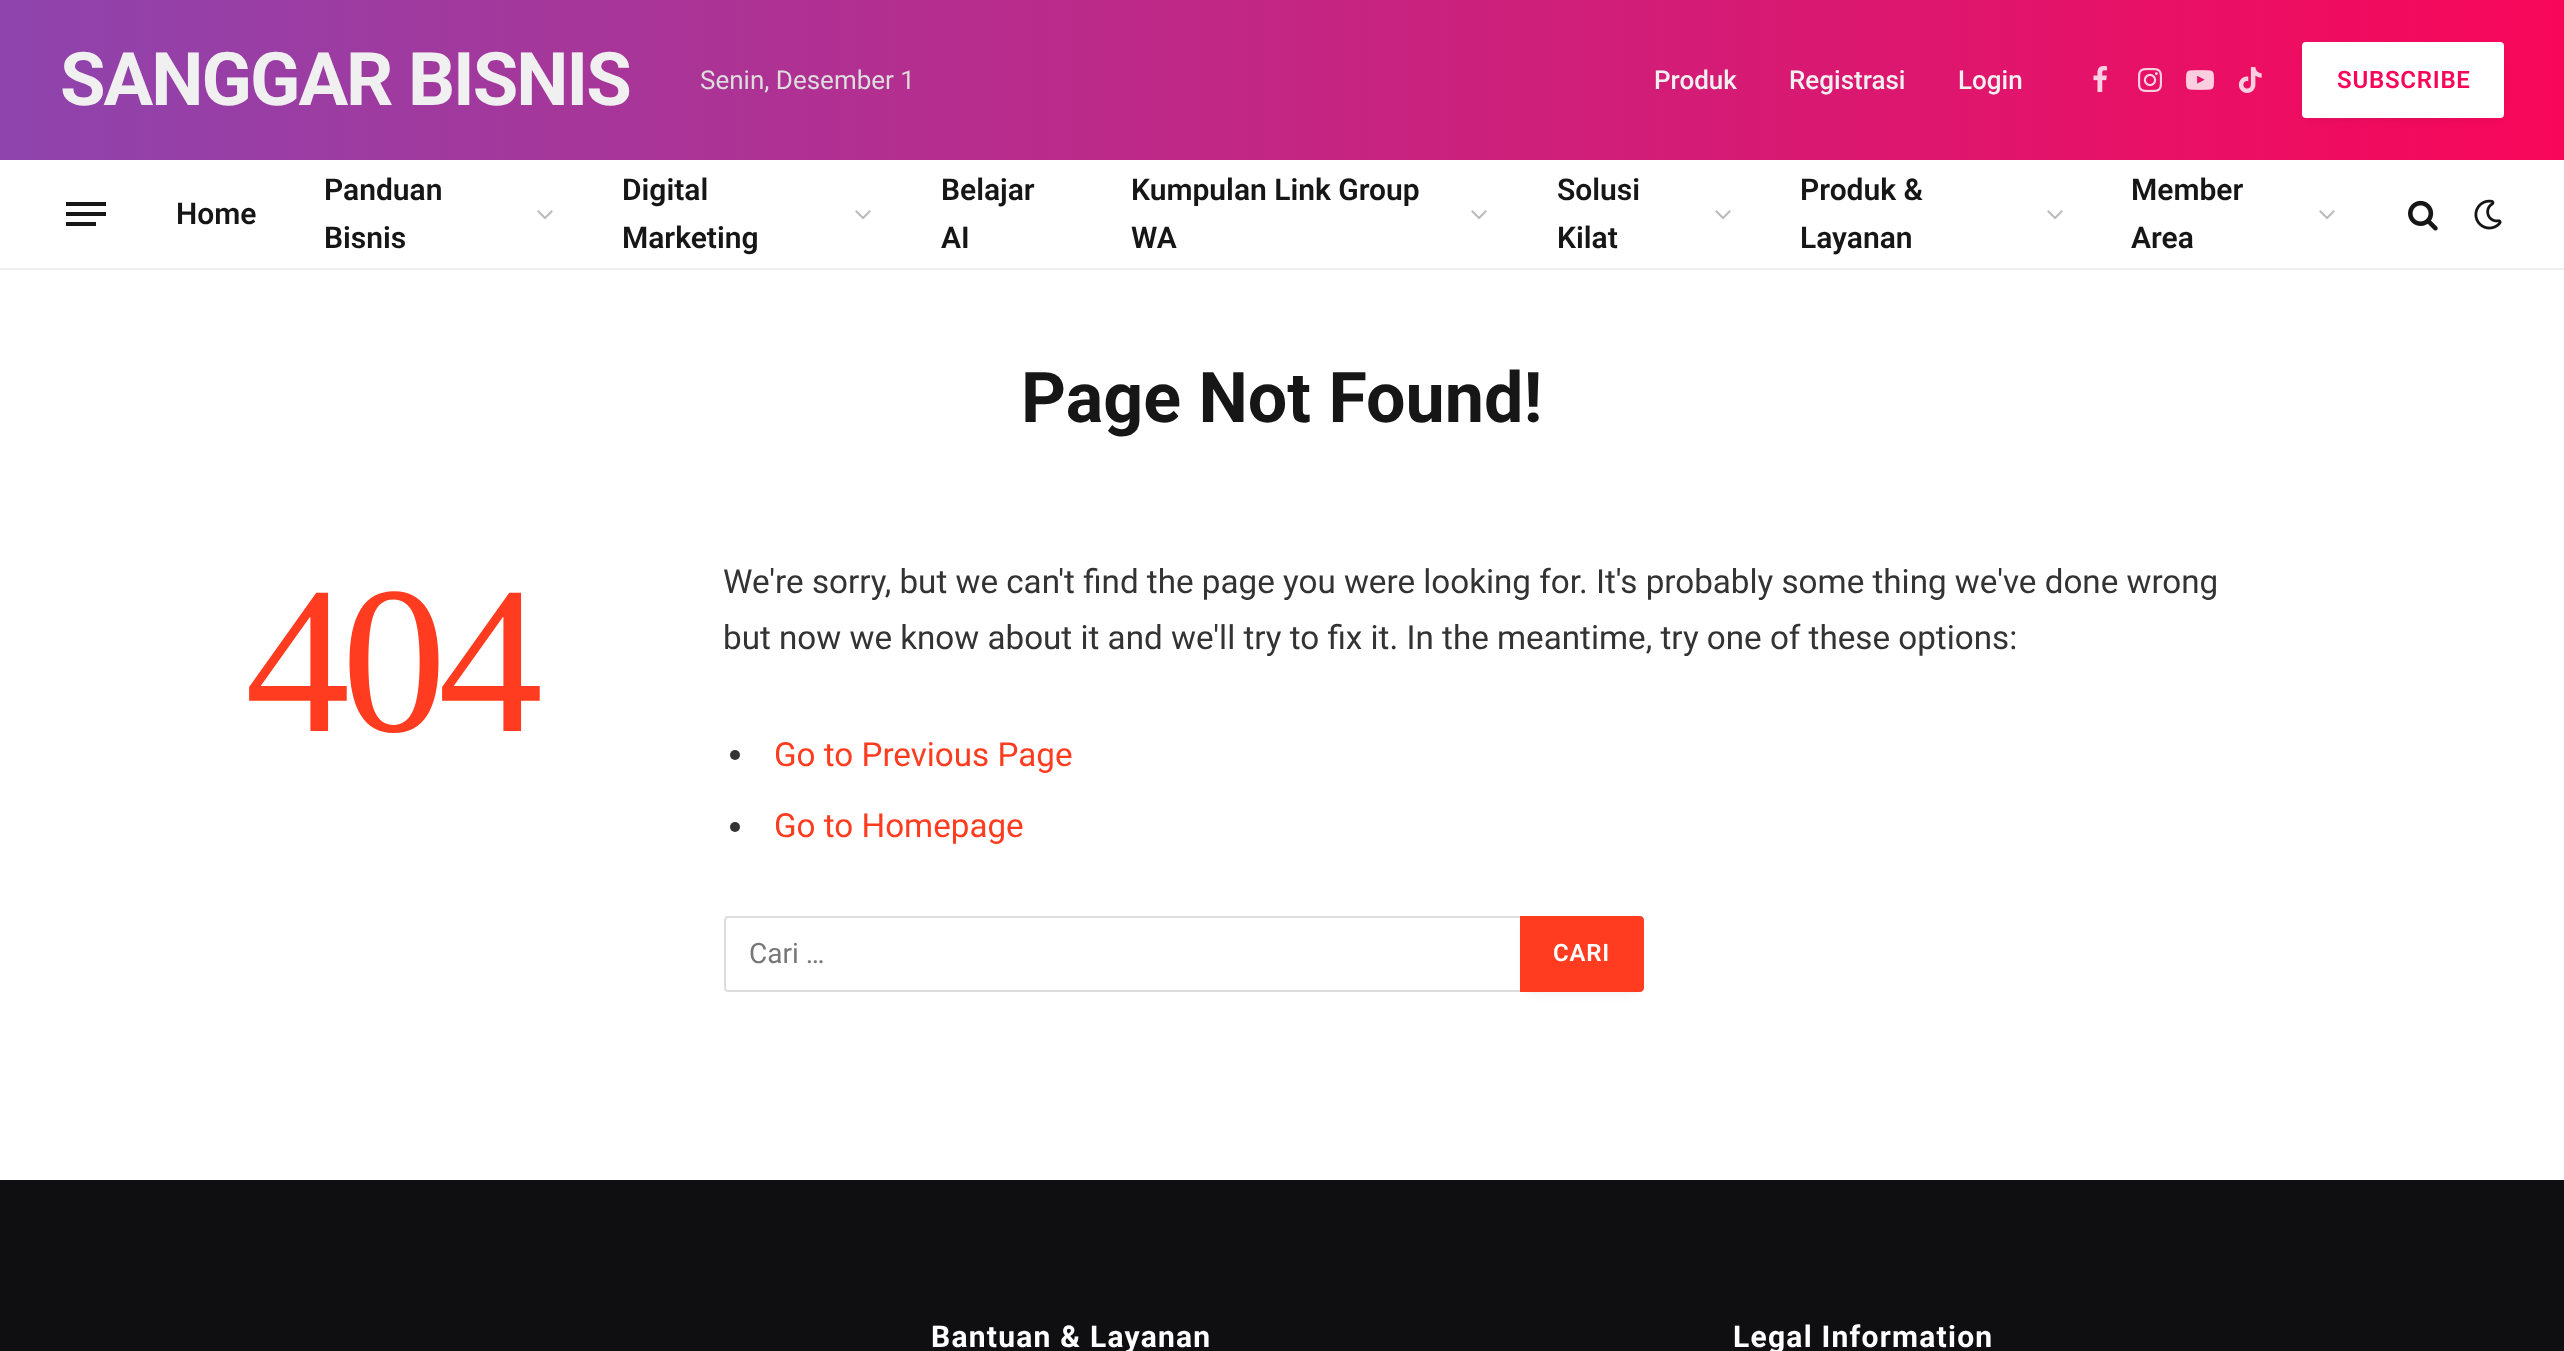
<?xml version="1.0" encoding="UTF-8"?>
<svg xmlns="http://www.w3.org/2000/svg" xmlns:xlink="http://www.w3.org/1999/xlink" width="2564" height="1351">
  <defs>
    <linearGradient id="g1" gradientUnits="userSpaceOnUse" x1="0" y1="80" x2="2564" y2="80"><stop offset="0" stop-color="#8e44ad" /><stop offset="1" stop-color="#f80759" /></linearGradient>
  </defs>
  <rect width="100%" height="100%" fill="#ffffff" />
  <rect width="2564" height="160" fill="url(#g1)" />
  <image x="2093" y="66" width="14" height="26" xlink:href="image1.png" />
  <image x="2138" y="68" width="24" height="24" xlink:href="image2.png" />
  <image x="2186" y="70" width="28" height="20" xlink:href="image3.png" />
  <image x="2238" y="67" width="24" height="26" xlink:href="image4.png" />
  <rect x="2310" y="54" width="186" height="60" fill="#000000" fill-opacity="0.16" filter="blur(7px)" />
  <rect x="2302" y="42" width="202" height="76" rx="4" fill="#ffffff" />
  <rect y="268" width="2564" height="2" fill="#efefef" />
  <rect x="66" y="222" width="30" height="4" fill="#161616" />
  <rect x="66" y="202" width="40" height="4" fill="#161616" />
  <rect x="66" y="212" width="40" height="4" fill="#161616" />
  <image x="537" y="210" width="16" height="10" xlink:href="image5.png" />
  <image x="855" y="210" width="16" height="10" xlink:href="image5.png" />
  <image x="1471" y="210" width="16" height="10" xlink:href="image5.png" />
  <image x="1715" y="210" width="16" height="10" xlink:href="image5.png" />
  <image x="2047" y="210" width="16" height="10" xlink:href="image5.png" />
  <image x="2319" y="210" width="16" height="10" xlink:href="image5.png" />
  <image x="2408" y="200" width="30" height="31" xlink:href="image6.png" />
  <image x="2474" y="199" width="28" height="31" xlink:href="image7.png" />
  <circle cx="735" cy="755" r="5" fill="#333333" />
  <circle cx="735" cy="827" r="5" fill="#333333" />
  <rect x="725" y="917" width="798" height="74" rx="3" fill="none" stroke="#dddddd" stroke-width="2" />
  <rect x="1528" y="928" width="108" height="60" fill="#000000" fill-opacity="0.16" filter="blur(7px)" />
  <path d="M 1520 916 h 120 c 2 0 4 2 4 4 v 68 c 0 2 -2 4 -4 4 h -120 z" fill="#ff3c1f" />
  <rect y="1180" width="2564" height="171" fill="#0f0f11" />
  <text x="60" y="105" style="font-family: Roboto; font-size: 74px; font-weight: bold; letter-spacing: -2px; fill: #f0f0f0">SANGGAR BISNIS</text>
  <text x="700" y="89" style="font-family: Roboto; font-size: 26px; fill: #dddddd">Senin, Desember 1</text>
  <text x="1654" y="89" style="font-family: Roboto; font-size: 26px; font-weight: 500; fill: #f0f0f0">Produk</text>
  <text x="1789" y="89" style="font-family: Roboto; font-size: 26px; font-weight: 500; fill: #f0f0f0">Registrasi</text>
  <text x="1958" y="89" style="font-family: Roboto; font-size: 26px; font-weight: 500; fill: #f0f0f0">Login</text>
  <text x="2337" y="88" style="font-family: Roboto; font-size: 24px; font-weight: 600; letter-spacing: 0.75px; fill: #f80759">SUBSCRIBE</text>
  <text x="176" y="224" style="font-family: Roboto; font-size: 30px; font-weight: 600; fill: #161616">Home</text>
  <text x="324" y="200" style="font-family: Roboto; font-size: 30px; font-weight: 600; fill: #161616">Panduan</text>
  <text x="324" y="248" style="font-family: Roboto; font-size: 30px; font-weight: 600; fill: #161616">Bisnis</text>
  <text x="622" y="200" style="font-family: Roboto; font-size: 30px; font-weight: 600; fill: #161616">Digital</text>
  <text x="622" y="248" style="font-family: Roboto; font-size: 30px; font-weight: 600; fill: #161616">Marketing</text>
  <text x="941" y="200" style="font-family: Roboto; font-size: 30px; font-weight: 600; fill: #161616">Belajar</text>
  <text x="941" y="248" style="font-family: Roboto; font-size: 30px; font-weight: 600; fill: #161616">AI</text>
  <text x="1131" y="200" style="font-family: Roboto; font-size: 30px; font-weight: 600; fill: #161616">Kumpulan Link Group</text>
  <text x="1131" y="248" style="font-family: Roboto; font-size: 30px; font-weight: 600; fill: #161616">WA</text>
  <text x="1557" y="200" style="font-family: Roboto; font-size: 30px; font-weight: 600; fill: #161616">Solusi</text>
  <text x="1557" y="248" style="font-family: Roboto; font-size: 30px; font-weight: 600; fill: #161616">Kilat</text>
  <text x="1800" y="200" style="font-family: Roboto; font-size: 30px; font-weight: 600; fill: #161616">Produk &amp;</text>
  <text x="1800" y="248" style="font-family: Roboto; font-size: 30px; font-weight: 600; fill: #161616">Layanan</text>
  <text x="2131" y="200" style="font-family: Roboto; font-size: 30px; font-weight: 600; fill: #161616">Member</text>
  <text x="2131" y="248" style="font-family: Roboto; font-size: 30px; font-weight: 600; fill: #161616">Area</text>
  <text x="1021" y="422" style="font-family: Roboto; font-size: 70px; font-weight: bold; fill: #161616">Page Not Found!</text>
  <text x="245" y="731" style="font-family: Liberation Serif; font-size: 210px; letter-spacing: -8.5px; fill: #ff3c1f">404</text>
  <text x="723" y="593" style="font-family: Roboto; font-size: 33.2px; fill: #333333">We're sorry, but we can't find the page you were looking for. It's probably some thing we've done wrong</text>
  <text x="723" y="649" style="font-family: Roboto; font-size: 33.2px; fill: #333333">but now we know about it and we'll try to fix it. In the meantime, try one of these options:</text>
  <text x="774" y="766" style="font-family: Roboto; font-size: 33.2px; fill: #ff3c1f">Go to Previous Page</text>
  <text x="774" y="837" style="font-family: Roboto; font-size: 33.2px; fill: #ff3c1f">Go to Homepage</text>
  <text x="749" y="963" style="font-family: Roboto; font-size: 28px; fill: #777777">Cari …</text>
  <text x="1553" y="961" style="font-family: Roboto; font-size: 24px; font-weight: 600; letter-spacing: 0.75px; fill: #ffffff">CARI</text>
  <text x="931" y="1347" style="font-family: Roboto; font-size: 30px; font-weight: bold; letter-spacing: 1.25px; fill: #ffffff">Bantuan &amp; Layanan</text>
  <text x="1733" y="1347" style="font-family: Roboto; font-size: 30px; font-weight: bold; letter-spacing: 1.25px; fill: #ffffff">Legal Information</text>
</svg>
